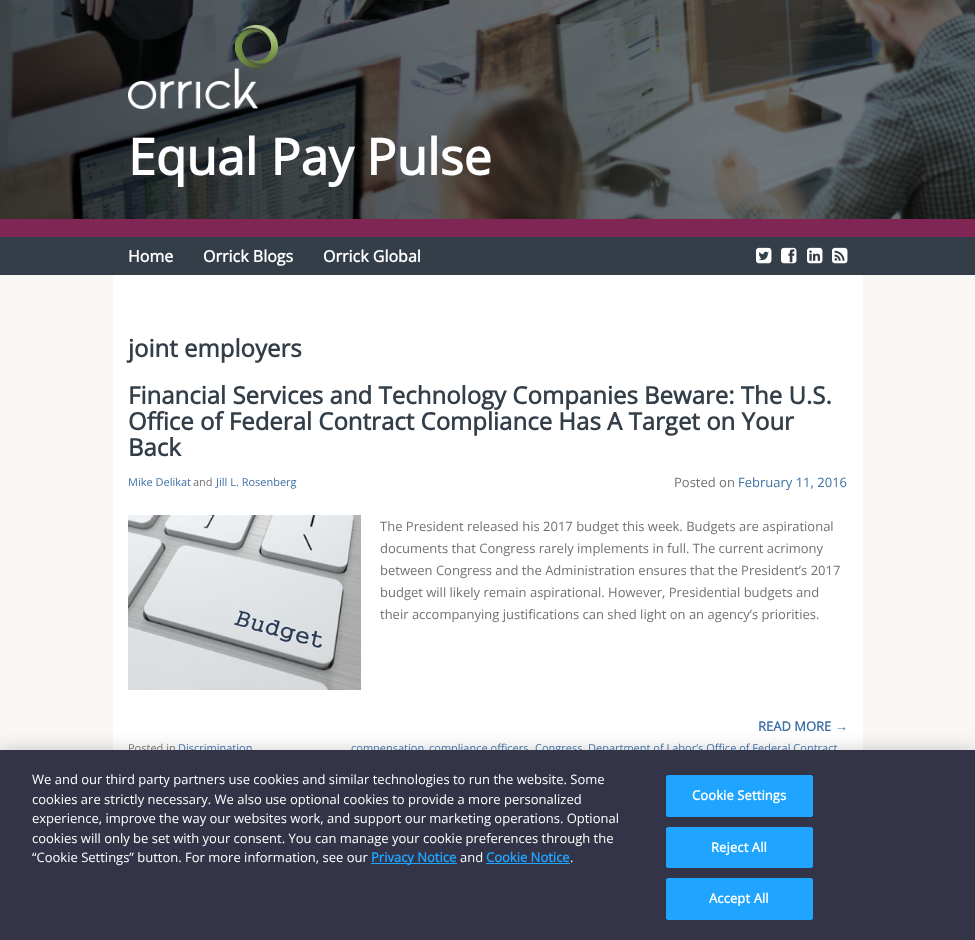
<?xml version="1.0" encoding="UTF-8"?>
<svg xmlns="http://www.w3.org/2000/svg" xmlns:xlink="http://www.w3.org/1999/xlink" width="975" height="940">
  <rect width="100%" height="100%" fill="#f8f7f5" />
  <image x="0" y="0" width="975" height="219" xlink:href="image1.png" />
  <rect y="219" width="975" height="18" fill="#802655" />
  <image x="128" y="25" width="150" height="84" xlink:href="image2.png" />
  <rect y="237" width="975" height="38" fill="#333e48" />
  <image x="756" y="247" width="16" height="17" xlink:href="image3.png" />
  <image x="781" y="247" width="16" height="17" xlink:href="image4.png" />
  <image x="807" y="247" width="16" height="17" xlink:href="image5.png" />
  <image x="832" y="247" width="16" height="17" xlink:href="image6.png" />
  <rect x="113" y="275" width="750" height="475" fill="#ffffff" />
  <image x="128" y="515" width="233" height="175" xlink:href="image7.png" />
  <rect y="750" width="975" height="190" fill="#000000" fill-opacity="0.2" filter="blur(9px)" />
  <text x="128" y="175" style="font-family: Open Sans; font-size: 50px; font-weight: bold; fill: #ffffff">Equal Pay Pulse</text>
  <text x="128" y="262" style="font-family: Open Sans; font-size: 16px; font-weight: bold; fill: #ffffff">Home</text>
  <text x="203" y="262" style="font-family: Open Sans; font-size: 16px; font-weight: bold; fill: #ffffff">Orrick Blogs</text>
  <text x="323" y="262" style="font-family: Open Sans; font-size: 16px; font-weight: bold; fill: #ffffff">Orrick Global</text>
  <text x="128" y="357" style="font-family: Open Sans; font-size: 24px; font-weight: bold; fill: #333e48">joint employers</text>
  <text x="128" y="404" style="font-family: Open Sans; font-size: 24px; font-weight: bold; fill: #333e48">Financial Services and Technology Companies Beware: The U.S.</text>
  <text x="128" y="430" style="font-family: Open Sans; font-size: 24px; font-weight: bold; fill: #333e48">Office of Federal Contract Compliance Has A Target on Your</text>
  <text x="128" y="456" style="font-family: Open Sans; font-size: 24px; font-weight: bold; fill: #333e48">Back</text>
  <text x="128" y="486" style="font-family: Open Sans; font-size: 11px; fill: #4071a4">Mike Delikat</text>
  <text x="193" y="486" style="font-family: Open Sans; font-size: 11px; fill: #717271">and</text>
  <text x="216" y="486" style="font-family: Open Sans; font-size: 11px; fill: #4071a4">Jill L. Rosenberg</text>
  <text x="674" y="487" style="font-family: Open Sans; font-size: 13px; fill: #717271">Posted on</text>
  <text x="738" y="487" style="font-family: Open Sans; font-size: 13px; fill: #4071a4">February 11, 2016</text>
  <text x="380" y="531" style="font-family: Open Sans; font-size: 13px; fill: #717271">The President released his 2017 budget this week. Budgets are aspirational</text>
  <text x="380" y="553" style="font-family: Open Sans; font-size: 13px; fill: #717271">documents that Congress rarely implements in full. The current acrimony</text>
  <text x="380" y="575" style="font-family: Open Sans; font-size: 13px; fill: #717271">between Congress and the Administration ensures that the President’s 2017</text>
  <text x="380" y="597" style="font-family: Open Sans; font-size: 13px; fill: #717271">budget will likely remain aspirational. However, Presidential budgets and</text>
  <text x="380" y="619" style="font-family: Open Sans; font-size: 13px; fill: #717271">their accompanying justifications can shed light on an agency’s priorities.</text>
  <text x="758" y="731" style="font-family: Open Sans; font-size: 13px; font-weight: bold; fill: #4071a4">READ MORE</text>
  <text x="835" y="731" style="font-family: Liberation Sans; font-size: 13px; font-weight: bold; fill: #4071a4">→</text>
  <text x="128" y="752" style="font-family: Open Sans; font-size: 11px; fill: #717271">Posted in</text>
  <text x="178" y="752" style="font-family: Open Sans; font-size: 11px; fill: #4071a4">Discrimination</text>
  <text x="351" y="752" style="font-family: Open Sans; font-size: 11px; fill: #4071a4">compensation</text>
  <text x="429" y="752" style="font-family: Open Sans; font-size: 11px; fill: #4071a4">compliance officers</text>
  <text x="535" y="752" style="font-family: Open Sans; font-size: 11px; fill: #4071a4">Congress</text>
  <text x="588" y="752" style="font-family: Open Sans; font-size: 11px; fill: #4071a4">Department of Labor’s Office of Federal Contract</text>
  <rect y="750" width="975" height="190" fill="#333447" />
  <text x="32" y="784" style="font-family: Open Sans; font-size: 13px; fill: #ffffff">We and our third party partners use cookies and similar technologies to run the website. Some</text>
  <text x="32" y="804" style="font-family: Open Sans; font-size: 13px; fill: #ffffff">cookies are strictly necessary. We also use optional cookies to provide a more personalized</text>
  <text x="32" y="823" style="font-family: Open Sans; font-size: 13px; fill: #ffffff">experience, improve the way our websites work, and support our marketing operations. Optional</text>
  <text x="32" y="843" style="font-family: Open Sans; font-size: 13px; fill: #ffffff">cookies will only be set with your consent. You can manage your cookie preferences through the</text>
  <text x="32" y="862" style="font-family: Open Sans; font-size: 13px; fill: #ffffff">“Cookie Settings” button. For more information, see our</text>
  <rect x="371" y="863" width="86" height="1" fill="#1fa5ff" />
  <text x="371" y="862" style="font-family: Open Sans; font-size: 13px; font-weight: bold; fill: #1fa5ff">Privacy Notice</text>
  <text x="460" y="862" style="font-family: Open Sans; font-size: 13px; fill: #ffffff">and</text>
  <text x="486" y="862" style="font-family: Open Sans; font-size: 13px; font-weight: bold; fill: #1fa5ff">Cookie Notice</text>
  <rect x="486" y="863" width="84" height="1" fill="#1fa5ff" />
  <text x="570" y="862" style="font-family: Open Sans; font-size: 13px; fill: #ffffff">.</text>
  <rect x="666.5" y="775.5" width="146" height="41" rx="1.5" fill="#1fa5ff" stroke="#1fa5ff" />
  <text x="692" y="800" style="font-family: Open Sans; font-size: 13px; font-weight: bold; letter-spacing: 0.1px; fill: #ffffff">Cookie Settings</text>
  <rect x="666.5" y="827.5" width="146" height="40" rx="1.5" fill="#1fa5ff" stroke="#1fa5ff" />
  <text x="711" y="852" style="font-family: Open Sans; font-size: 13px; font-weight: bold; letter-spacing: 0.1px; fill: #ffffff">Reject All</text>
  <rect x="666.5" y="878.5" width="146" height="41" rx="1.5" fill="#1fa5ff" stroke="#1fa5ff" />
  <text x="709" y="903" style="font-family: Open Sans; font-size: 13px; font-weight: bold; letter-spacing: 0.1px; fill: #ffffff">Accept All</text>
</svg>
